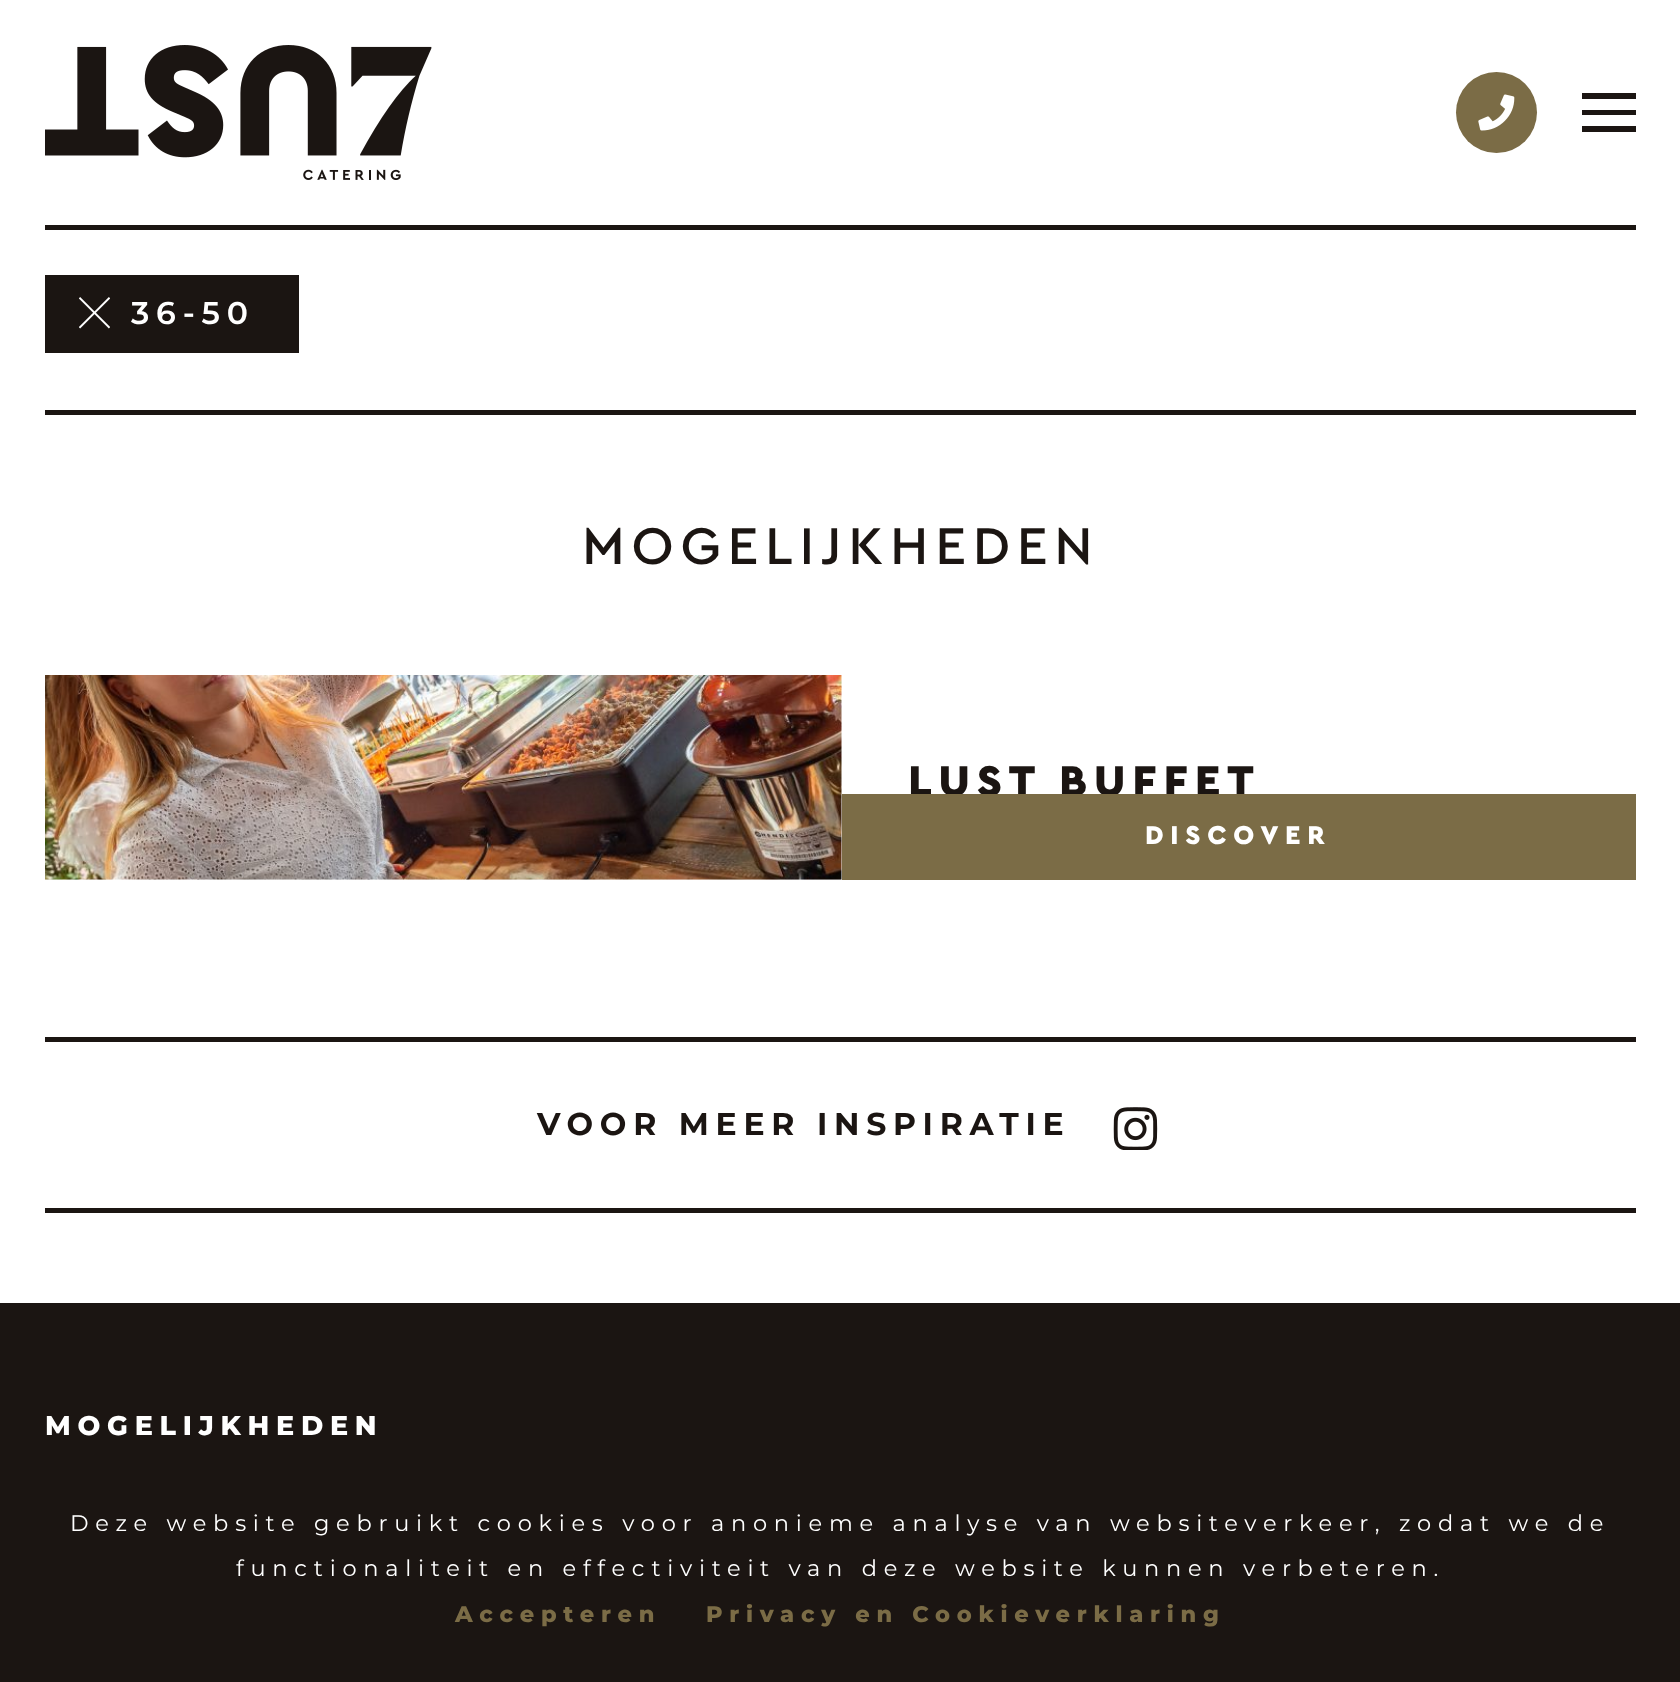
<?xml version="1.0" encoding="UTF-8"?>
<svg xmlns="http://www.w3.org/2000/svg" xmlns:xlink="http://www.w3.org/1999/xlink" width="1680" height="1682">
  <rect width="100%" height="100%" fill="#ffffff" />
  <image x="45" y="45" width="387" height="135" xlink:href="image1.png" />
  <circle cx="1496.5" cy="112.5" r="40.5" fill="#7b6c46" />
  <image x="1478" y="94" width="37" height="37" xlink:href="image2.png" />
  <rect x="1582" y="93" width="54" height="6" fill="#1b1512" />
  <rect x="1582" y="110" width="54" height="5" fill="#1b1512" />
  <rect x="1582" y="126" width="54" height="6" fill="#1b1512" />
  <rect x="45" y="225" width="1591" height="5" fill="#1b1512" />
  <rect x="45" y="410" width="1591" height="5" fill="#1b1512" />
  <rect x="45" y="275" width="254" height="78" fill="#1b1512" />
  <image x="79" y="297" width="31" height="32" xlink:href="image3.png" />
  <image x="45" y="675" width="797" height="205" xlink:href="image4.png" />
  <rect x="45" y="1037" width="1591" height="5" fill="#1b1512" />
  <rect x="45" y="1208" width="1591" height="5" fill="#1b1512" />
  <image x="1113" y="1107" width="45" height="43" xlink:href="image5.png" />
  <rect y="1303" width="1680" height="379" fill="#1b1512" />
  <text x="131" y="324" style="font-family: Montserrat; font-size: 31.5px; font-weight: 600; letter-spacing: 6.75px; fill: #ffffff">36-50</text>
  <text x="582" y="564" style="font-family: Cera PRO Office; font-size: 54px; font-weight: 500; letter-spacing: 6.75px; fill: #1b1512">MOGELIJKHEDEN</text>
  <text x="908" y="796" style="font-family: Cera PRO Office; font-size: 45px; font-weight: 900; letter-spacing: 6.75px; fill: #1b1512">LUST BUFFET</text>
  <rect x="842" y="794" width="794" height="86" fill="#7b6c46" />
  <text x="1145" y="844" style="font-family: Cera PRO Office; font-size: 27px; font-weight: 900; letter-spacing: 6.75px; fill: #ffffff">DISCOVER</text>
  <text x="537" y="1135" style="font-family: Montserrat; font-size: 31.5px; font-weight: bold; letter-spacing: 6.75px; fill: #1b1512">VOOR MEER INSPIRATIE</text>
  <text x="45" y="1435" style="font-family: Montserrat; font-size: 27px; font-weight: 800; letter-spacing: 6.75px; fill: #ffffff">MOGELIJKHEDEN</text>
  <text x="70" y="1531" style="font-family: Montserrat; font-size: 22.5px; letter-spacing: 6.75px; fill: #ffffff">Deze website gebruikt cookies voor anonieme analyse van websiteverkeer, zodat we de</text>
  <text x="236" y="1576" style="font-family: Montserrat; font-size: 22.5px; letter-spacing: 6.75px; fill: #ffffff">functionaliteit en effectiviteit van deze website kunnen verbeteren.</text>
  <text x="455" y="1622" style="font-family: Montserrat; font-size: 22.5px; font-weight: 800; letter-spacing: 6.75px; fill: #7b6c46">Accepteren</text>
  <text x="706" y="1622" style="font-family: Montserrat; font-size: 22.5px; font-weight: 800; letter-spacing: 6.75px; fill: #7b6c46">Privacy en Cookieverklaring</text>
</svg>
